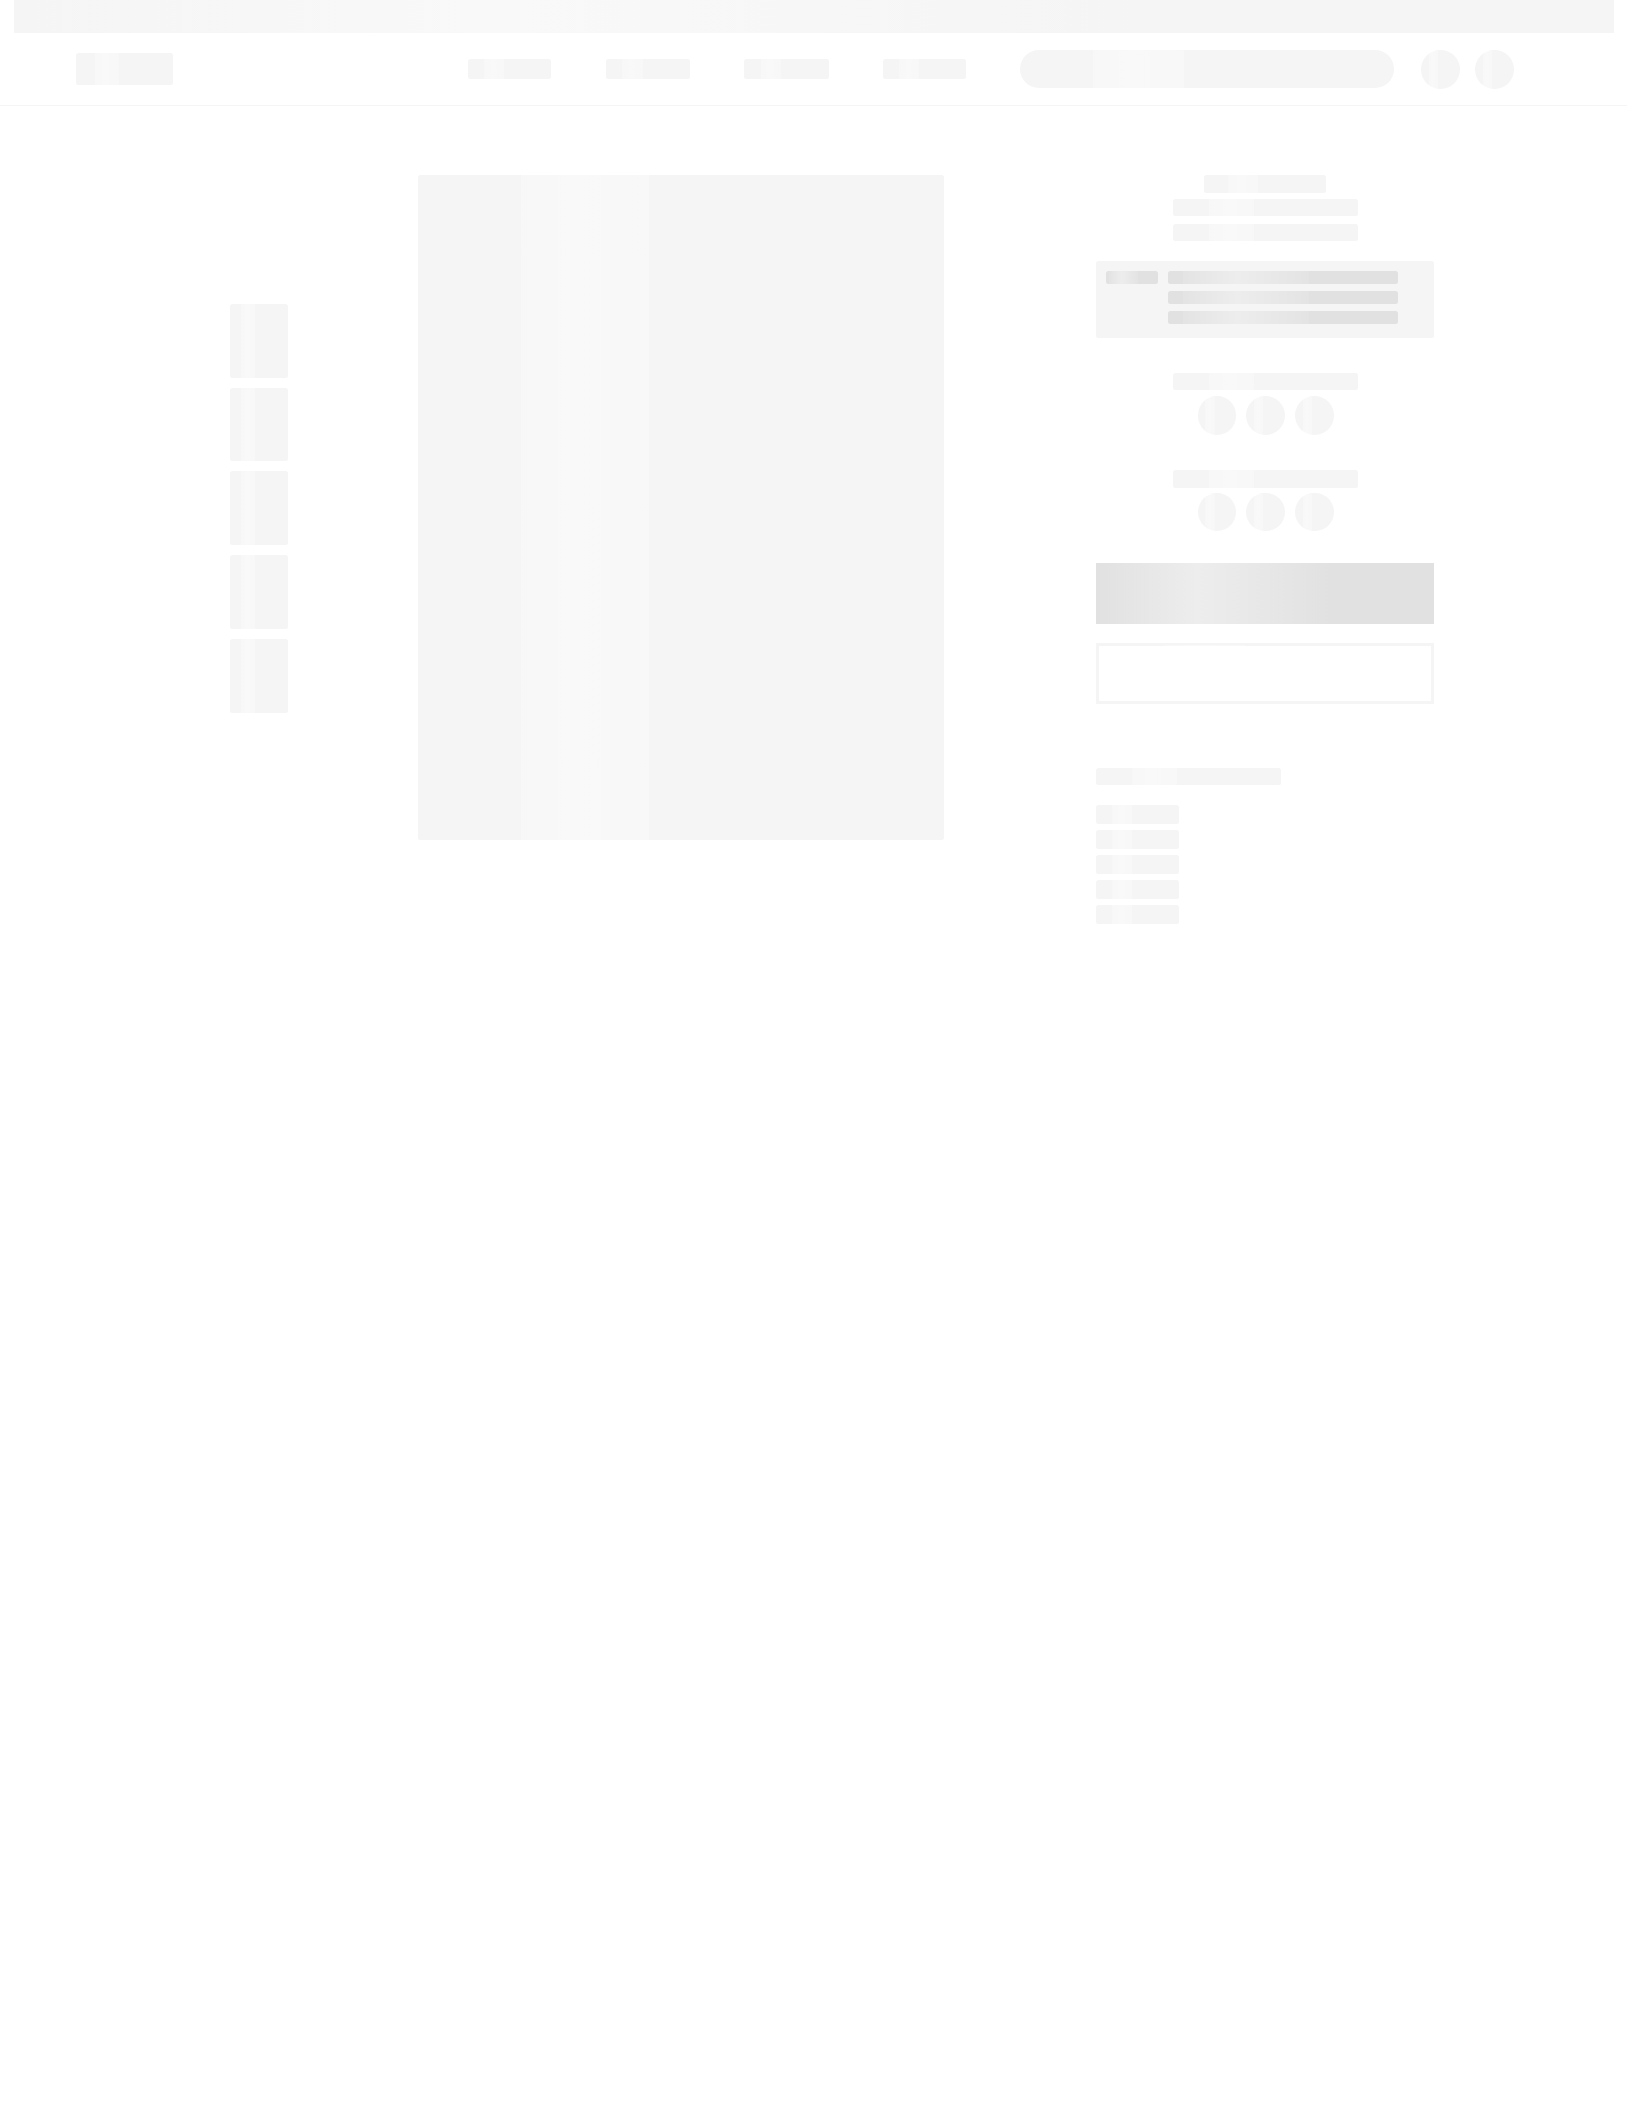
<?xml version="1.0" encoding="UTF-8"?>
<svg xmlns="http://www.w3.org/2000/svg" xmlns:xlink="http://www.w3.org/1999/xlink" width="1627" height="2106">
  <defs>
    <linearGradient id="g1" gradientUnits="userSpaceOnUse" x1="14" y1="16" x2="1614" y2="16"><stop offset="0" stop-color="#f5f5f5" /><stop offset="0.3" stop-color="#f9f9f9" /><stop offset="0.7" stop-color="#f5f5f5" /></linearGradient>
    <linearGradient id="g2" gradientUnits="userSpaceOnUse" x1="76" y1="69" x2="173" y2="69"><stop offset="0" stop-color="#ffffff" stop-opacity="0" /><stop offset="0.3" stop-color="#ffffff" stop-opacity="0.4" /><stop offset="0.7" stop-color="#ffffff" stop-opacity="0" /></linearGradient>
    <linearGradient id="g3" gradientUnits="userSpaceOnUse" x1="468" y1="69" x2="551" y2="69"><stop offset="0" stop-color="#ffffff" stop-opacity="0" /><stop offset="0.3" stop-color="#ffffff" stop-opacity="0.4" /><stop offset="0.7" stop-color="#ffffff" stop-opacity="0" /></linearGradient>
    <linearGradient id="g4" gradientUnits="userSpaceOnUse" x1="606" y1="69" x2="690" y2="69"><stop offset="0" stop-color="#ffffff" stop-opacity="0" /><stop offset="0.3" stop-color="#ffffff" stop-opacity="0.4" /><stop offset="0.7" stop-color="#ffffff" stop-opacity="0" /></linearGradient>
    <linearGradient id="g5" gradientUnits="userSpaceOnUse" x1="744" y1="69" x2="829" y2="69"><stop offset="0" stop-color="#ffffff" stop-opacity="0" /><stop offset="0.3" stop-color="#ffffff" stop-opacity="0.4" /><stop offset="0.7" stop-color="#ffffff" stop-opacity="0" /></linearGradient>
    <linearGradient id="g6" gradientUnits="userSpaceOnUse" x1="883" y1="69" x2="966" y2="69"><stop offset="0" stop-color="#ffffff" stop-opacity="0" /><stop offset="0.3" stop-color="#ffffff" stop-opacity="0.4" /><stop offset="0.7" stop-color="#ffffff" stop-opacity="0" /></linearGradient>
    <linearGradient id="g7" gradientUnits="userSpaceOnUse" x1="1020" y1="69" x2="1394" y2="69"><stop offset="0" stop-color="#ffffff" stop-opacity="0" /><stop offset="0.3" stop-color="#ffffff" stop-opacity="0.4" /><stop offset="0.7" stop-color="#ffffff" stop-opacity="0" /></linearGradient>
    <linearGradient id="g8" gradientUnits="userSpaceOnUse" x1="1421" y1="69" x2="1460" y2="69"><stop offset="0" stop-color="#ffffff" stop-opacity="0" /><stop offset="0.3" stop-color="#ffffff" stop-opacity="0.4" /><stop offset="0.7" stop-color="#ffffff" stop-opacity="0" /></linearGradient>
    <linearGradient id="g9" gradientUnits="userSpaceOnUse" x1="1475" y1="69" x2="1514" y2="69"><stop offset="0" stop-color="#ffffff" stop-opacity="0" /><stop offset="0.3" stop-color="#ffffff" stop-opacity="0.4" /><stop offset="0.7" stop-color="#ffffff" stop-opacity="0" /></linearGradient>
    <linearGradient id="g10" gradientUnits="userSpaceOnUse" x1="230" y1="341" x2="288" y2="341"><stop offset="0" stop-color="#ffffff" stop-opacity="0" /><stop offset="0.3" stop-color="#ffffff" stop-opacity="0.4" /><stop offset="0.7" stop-color="#ffffff" stop-opacity="0" /></linearGradient>
    <linearGradient id="g11" gradientUnits="userSpaceOnUse" x1="230" y1="424" x2="288" y2="424"><stop offset="0" stop-color="#ffffff" stop-opacity="0" /><stop offset="0.3" stop-color="#ffffff" stop-opacity="0.4" /><stop offset="0.7" stop-color="#ffffff" stop-opacity="0" /></linearGradient>
    <linearGradient id="g12" gradientUnits="userSpaceOnUse" x1="230" y1="508" x2="288" y2="508"><stop offset="0" stop-color="#ffffff" stop-opacity="0" /><stop offset="0.3" stop-color="#ffffff" stop-opacity="0.4" /><stop offset="0.7" stop-color="#ffffff" stop-opacity="0" /></linearGradient>
    <linearGradient id="g13" gradientUnits="userSpaceOnUse" x1="230" y1="592" x2="288" y2="592"><stop offset="0" stop-color="#ffffff" stop-opacity="0" /><stop offset="0.3" stop-color="#ffffff" stop-opacity="0.4" /><stop offset="0.7" stop-color="#ffffff" stop-opacity="0" /></linearGradient>
    <linearGradient id="g14" gradientUnits="userSpaceOnUse" x1="230" y1="676" x2="288" y2="676"><stop offset="0" stop-color="#ffffff" stop-opacity="0" /><stop offset="0.3" stop-color="#ffffff" stop-opacity="0.4" /><stop offset="0.7" stop-color="#ffffff" stop-opacity="0" /></linearGradient>
    <linearGradient id="g15" gradientUnits="userSpaceOnUse" x1="418" y1="508" x2="944" y2="508"><stop offset="0" stop-color="#ffffff" stop-opacity="0" /><stop offset="0.3" stop-color="#ffffff" stop-opacity="0.4" /><stop offset="0.7" stop-color="#ffffff" stop-opacity="0" /></linearGradient>
    <linearGradient id="g16" gradientUnits="userSpaceOnUse" x1="1204" y1="184" x2="1326" y2="184"><stop offset="0" stop-color="#ffffff" stop-opacity="0" /><stop offset="0.3" stop-color="#ffffff" stop-opacity="0.4" /><stop offset="0.7" stop-color="#ffffff" stop-opacity="0" /></linearGradient>
    <linearGradient id="g17" gradientUnits="userSpaceOnUse" x1="1173" y1="208" x2="1358" y2="208"><stop offset="0" stop-color="#ffffff" stop-opacity="0" /><stop offset="0.3" stop-color="#ffffff" stop-opacity="0.4" /><stop offset="0.7" stop-color="#ffffff" stop-opacity="0" /></linearGradient>
    <linearGradient id="g18" gradientUnits="userSpaceOnUse" x1="1173" y1="233" x2="1358" y2="233"><stop offset="0" stop-color="#ffffff" stop-opacity="0" /><stop offset="0.3" stop-color="#ffffff" stop-opacity="0.4" /><stop offset="0.7" stop-color="#ffffff" stop-opacity="0" /></linearGradient>
    <linearGradient id="g19" gradientUnits="userSpaceOnUse" x1="1106" y1="278" x2="1158" y2="278"><stop offset="0" stop-color="#ffffff" stop-opacity="0" /><stop offset="0.3" stop-color="#ffffff" stop-opacity="0.4" /><stop offset="0.7" stop-color="#ffffff" stop-opacity="0" /></linearGradient>
    <linearGradient id="g20" gradientUnits="userSpaceOnUse" x1="1168" y1="278" x2="1398" y2="278"><stop offset="0" stop-color="#ffffff" stop-opacity="0" /><stop offset="0.3" stop-color="#ffffff" stop-opacity="0.4" /><stop offset="0.7" stop-color="#ffffff" stop-opacity="0" /></linearGradient>
    <linearGradient id="g21" gradientUnits="userSpaceOnUse" x1="1168" y1="298" x2="1398" y2="298"><stop offset="0" stop-color="#ffffff" stop-opacity="0" /><stop offset="0.3" stop-color="#ffffff" stop-opacity="0.4" /><stop offset="0.7" stop-color="#ffffff" stop-opacity="0" /></linearGradient>
    <linearGradient id="g22" gradientUnits="userSpaceOnUse" x1="1168" y1="318" x2="1398" y2="318"><stop offset="0" stop-color="#ffffff" stop-opacity="0" /><stop offset="0.3" stop-color="#ffffff" stop-opacity="0.4" /><stop offset="0.7" stop-color="#ffffff" stop-opacity="0" /></linearGradient>
    <linearGradient id="g23" gradientUnits="userSpaceOnUse" x1="1173" y1="381" x2="1358" y2="381"><stop offset="0" stop-color="#ffffff" stop-opacity="0" /><stop offset="0.3" stop-color="#ffffff" stop-opacity="0.4" /><stop offset="0.7" stop-color="#ffffff" stop-opacity="0" /></linearGradient>
    <linearGradient id="g24" gradientUnits="userSpaceOnUse" x1="1198" y1="416" x2="1236" y2="416"><stop offset="0" stop-color="#ffffff" stop-opacity="0" /><stop offset="0.3" stop-color="#ffffff" stop-opacity="0.4" /><stop offset="0.7" stop-color="#ffffff" stop-opacity="0" /></linearGradient>
    <linearGradient id="g25" gradientUnits="userSpaceOnUse" x1="1246" y1="416" x2="1285" y2="416"><stop offset="0" stop-color="#ffffff" stop-opacity="0" /><stop offset="0.3" stop-color="#ffffff" stop-opacity="0.4" /><stop offset="0.7" stop-color="#ffffff" stop-opacity="0" /></linearGradient>
    <linearGradient id="g26" gradientUnits="userSpaceOnUse" x1="1295" y1="416" x2="1334" y2="416"><stop offset="0" stop-color="#ffffff" stop-opacity="0" /><stop offset="0.3" stop-color="#ffffff" stop-opacity="0.4" /><stop offset="0.7" stop-color="#ffffff" stop-opacity="0" /></linearGradient>
    <linearGradient id="g27" gradientUnits="userSpaceOnUse" x1="1173" y1="479" x2="1358" y2="479"><stop offset="0" stop-color="#ffffff" stop-opacity="0" /><stop offset="0.3" stop-color="#ffffff" stop-opacity="0.4" /><stop offset="0.7" stop-color="#ffffff" stop-opacity="0" /></linearGradient>
    <linearGradient id="g28" gradientUnits="userSpaceOnUse" x1="1198" y1="512" x2="1236" y2="512"><stop offset="0" stop-color="#ffffff" stop-opacity="0" /><stop offset="0.3" stop-color="#ffffff" stop-opacity="0.4" /><stop offset="0.7" stop-color="#ffffff" stop-opacity="0" /></linearGradient>
    <linearGradient id="g29" gradientUnits="userSpaceOnUse" x1="1246" y1="512" x2="1285" y2="512"><stop offset="0" stop-color="#ffffff" stop-opacity="0" /><stop offset="0.3" stop-color="#ffffff" stop-opacity="0.4" /><stop offset="0.7" stop-color="#ffffff" stop-opacity="0" /></linearGradient>
    <linearGradient id="g30" gradientUnits="userSpaceOnUse" x1="1295" y1="512" x2="1334" y2="512"><stop offset="0" stop-color="#ffffff" stop-opacity="0" /><stop offset="0.3" stop-color="#ffffff" stop-opacity="0.4" /><stop offset="0.7" stop-color="#ffffff" stop-opacity="0" /></linearGradient>
    <linearGradient id="g31" gradientUnits="userSpaceOnUse" x1="1096" y1="593" x2="1434" y2="593"><stop offset="0" stop-color="#e1e1e1" /><stop offset="0.3" stop-color="#ededed" /><stop offset="0.7" stop-color="#e1e1e1" /></linearGradient>
    <linearGradient id="g32" gradientUnits="userSpaceOnUse" x1="1099" y1="673" x2="1431" y2="673"><stop offset="0" stop-color="#ffffff" stop-opacity="0" /><stop offset="0.3" stop-color="#ffffff" stop-opacity="0.4" /><stop offset="0.7" stop-color="#ffffff" stop-opacity="0" /></linearGradient>
    <linearGradient id="g33" gradientUnits="userSpaceOnUse" x1="1096" y1="776" x2="1281" y2="776"><stop offset="0" stop-color="#ffffff" stop-opacity="0" /><stop offset="0.3" stop-color="#ffffff" stop-opacity="0.4" /><stop offset="0.7" stop-color="#ffffff" stop-opacity="0" /></linearGradient>
    <linearGradient id="g34" gradientUnits="userSpaceOnUse" x1="1096" y1="814" x2="1179" y2="814"><stop offset="0" stop-color="#ffffff" stop-opacity="0" /><stop offset="0.3" stop-color="#ffffff" stop-opacity="0.4" /><stop offset="0.7" stop-color="#ffffff" stop-opacity="0" /></linearGradient>
    <linearGradient id="g35" gradientUnits="userSpaceOnUse" x1="1096" y1="839" x2="1179" y2="839"><stop offset="0" stop-color="#ffffff" stop-opacity="0" /><stop offset="0.3" stop-color="#ffffff" stop-opacity="0.4" /><stop offset="0.7" stop-color="#ffffff" stop-opacity="0" /></linearGradient>
    <linearGradient id="g36" gradientUnits="userSpaceOnUse" x1="1096" y1="864" x2="1179" y2="864"><stop offset="0" stop-color="#ffffff" stop-opacity="0" /><stop offset="0.3" stop-color="#ffffff" stop-opacity="0.4" /><stop offset="0.7" stop-color="#ffffff" stop-opacity="0" /></linearGradient>
    <linearGradient id="g37" gradientUnits="userSpaceOnUse" x1="1096" y1="889" x2="1179" y2="889"><stop offset="0" stop-color="#ffffff" stop-opacity="0" /><stop offset="0.3" stop-color="#ffffff" stop-opacity="0.4" /><stop offset="0.7" stop-color="#ffffff" stop-opacity="0" /></linearGradient>
    <linearGradient id="g38" gradientUnits="userSpaceOnUse" x1="1096" y1="914" x2="1179" y2="914"><stop offset="0" stop-color="#ffffff" stop-opacity="0" /><stop offset="0.3" stop-color="#ffffff" stop-opacity="0.4" /><stop offset="0.7" stop-color="#ffffff" stop-opacity="0" /></linearGradient>
  </defs>
  <rect width="100%" height="100%" fill="#ffffff" />
  <rect y="105" width="1627" height="1" fill="#f5f5f5" />
  <rect x="14" width="1600" height="33" fill="url(#g1)" />
  <rect x="76" y="53" width="97" height="32" rx="2.5" fill="#f5f5f5" />
  <rect x="95" y="53" width="24" height="32" fill="url(#g2)" />
  <rect x="468" y="59" width="83" height="20" rx="2.5" fill="#f5f5f5" />
  <rect x="484" y="59" width="20" height="20" fill="url(#g3)" />
  <rect x="606" y="59" width="84" height="20" rx="2.5" fill="#f5f5f5" />
  <rect x="622" y="59" width="21" height="20" fill="url(#g4)" />
  <rect x="744" y="59" width="85" height="20" rx="2.5" fill="#f5f5f5" />
  <rect x="761" y="59" width="20" height="20" fill="url(#g5)" />
  <rect x="883" y="59" width="83" height="20" rx="2.5" fill="#f5f5f5" />
  <rect x="899" y="59" width="20" height="20" fill="url(#g6)" />
  <rect x="1020" y="50" width="374" height="38" rx="19" fill="#f5f5f5" />
  <rect x="1093" y="50" width="91" height="38" fill="url(#g7)" />
  <circle cx="1440.5" cy="69.5" r="19.5" fill="#f5f5f5" />
  <rect x="1429" y="51" width="9" height="37" fill="url(#g8)" />
  <circle cx="1494.5" cy="69.5" r="19.5" fill="#f5f5f5" />
  <rect x="1483" y="51" width="9" height="37" fill="url(#g9)" />
  <rect x="230" y="304" width="58" height="74" rx="2.5" fill="#f5f5f5" />
  <rect x="241" y="304" width="14" height="74" fill="url(#g10)" />
  <rect x="230" y="388" width="58" height="73" rx="2.5" fill="#f5f5f5" />
  <rect x="241" y="388" width="14" height="73" fill="url(#g11)" />
  <rect x="230" y="471" width="58" height="74" rx="2.5" fill="#f5f5f5" />
  <rect x="241" y="471" width="14" height="74" fill="url(#g12)" />
  <rect x="230" y="555" width="58" height="74" rx="2.5" fill="#f5f5f5" />
  <rect x="241" y="555" width="14" height="74" fill="url(#g13)" />
  <rect x="230" y="639" width="58" height="74" rx="2.5" fill="#f5f5f5" />
  <rect x="241" y="639" width="14" height="74" fill="url(#g14)" />
  <rect x="418" y="175" width="526" height="665" rx="2.5" fill="#f5f5f5" />
  <rect x="521" y="175" width="128" height="665" fill="url(#g15)" />
  <rect x="1204" y="175" width="122" height="18" rx="2.5" fill="#f5f5f5" />
  <rect x="1228" y="175" width="30" height="18" fill="url(#g16)" />
  <rect x="1173" y="199" width="185" height="17" rx="2.5" fill="#f5f5f5" />
  <rect x="1209" y="199" width="45" height="17" fill="url(#g17)" />
  <rect x="1173" y="224" width="185" height="17" rx="2.5" fill="#f5f5f5" />
  <rect x="1209" y="224" width="45" height="17" fill="url(#g18)" />
  <rect x="1096" y="261" width="338" height="77" rx="2.5" fill="#f5f5f5" />
  <rect x="1106" y="271" width="52" height="13" rx="2.5" fill="#e1e1e1" />
  <rect x="1109" y="271" width="29" height="13" fill="url(#g19)" />
  <rect x="1168" y="271" width="230" height="13" rx="2.5" fill="#e1e1e1" />
  <rect x="1183" y="271" width="126" height="13" fill="url(#g20)" />
  <rect x="1168" y="291" width="230" height="13" rx="2.5" fill="#e1e1e1" />
  <rect x="1183" y="291" width="126" height="13" fill="url(#g21)" />
  <rect x="1168" y="311" width="230" height="13" rx="2.5" fill="#e1e1e1" />
  <rect x="1183" y="311" width="126" height="13" fill="url(#g22)" />
  <rect x="1173" y="373" width="185" height="17" rx="2.5" fill="#f5f5f5" />
  <rect x="1209" y="373" width="45" height="17" fill="url(#g23)" />
  <rect x="1198" y="396" width="38" height="39" rx="19" fill="#f5f5f5" />
  <rect x="1205" y="397" width="10" height="37" fill="url(#g24)" />
  <circle cx="1265.5" cy="415.5" r="19.5" fill="#f5f5f5" />
  <rect x="1254" y="397" width="9" height="37" fill="url(#g25)" />
  <circle cx="1314.5" cy="415.5" r="19.5" fill="#f5f5f5" />
  <rect x="1303" y="397" width="9" height="37" fill="url(#g26)" />
  <rect x="1173" y="470" width="185" height="18" rx="2.5" fill="#f5f5f5" />
  <rect x="1209" y="470" width="45" height="18" fill="url(#g27)" />
  <circle cx="1217" cy="512" r="19" fill="#f5f5f5" />
  <rect x="1205" y="494" width="10" height="36" fill="url(#g28)" />
  <rect x="1246" y="493" width="39" height="38" rx="19" fill="#f5f5f5" />
  <rect x="1254" y="494" width="9" height="36" fill="url(#g29)" />
  <rect x="1295" y="493" width="39" height="38" rx="19" fill="#f5f5f5" />
  <rect x="1303" y="494" width="9" height="36" fill="url(#g30)" />
  <rect x="1096" y="563" width="338" height="61" fill="url(#g31)" />
  <rect x="1097.5" y="644.5" width="335" height="58" fill="none" stroke="#f5f5f5" stroke-width="3" />
  <rect x="1164" y="645" width="81" height="1" fill="url(#g32)" />
  <rect x="1096" y="768" width="185" height="17" rx="2.5" fill="#f5f5f5" />
  <rect x="1132" y="768" width="45" height="17" fill="url(#g33)" />
  <rect x="1096" y="805" width="83" height="19" rx="2.5" fill="#f5f5f5" />
  <rect x="1112" y="805" width="20" height="19" fill="url(#g34)" />
  <rect x="1096" y="830" width="83" height="19" rx="2.5" fill="#f5f5f5" />
  <rect x="1112" y="830" width="20" height="19" fill="url(#g35)" />
  <rect x="1096" y="855" width="83" height="19" rx="2.5" fill="#f5f5f5" />
  <rect x="1112" y="855" width="20" height="19" fill="url(#g36)" />
  <rect x="1096" y="880" width="83" height="19" rx="2.5" fill="#f5f5f5" />
  <rect x="1112" y="880" width="20" height="19" fill="url(#g37)" />
  <rect x="1096" y="905" width="83" height="19" rx="2.5" fill="#f5f5f5" />
  <rect x="1112" y="905" width="20" height="19" fill="url(#g38)" />
</svg>
